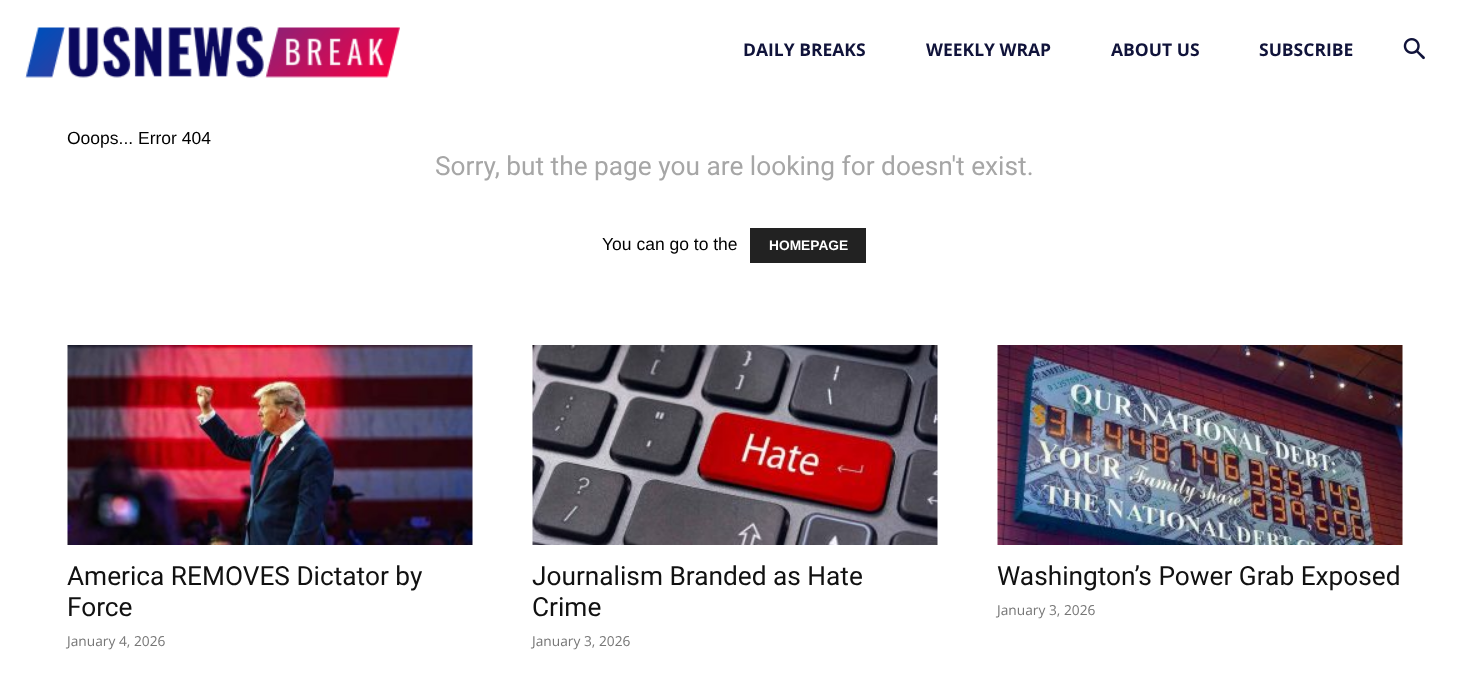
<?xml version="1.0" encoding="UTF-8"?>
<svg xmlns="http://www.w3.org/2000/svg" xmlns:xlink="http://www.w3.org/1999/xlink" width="1468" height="679">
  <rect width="100%" height="100%" fill="#ffffff" />
  <image x="25" y="26" width="375" height="52" xlink:href="image1.png" />
  <image x="1403" y="38" width="22" height="22" xlink:href="image2.png" />
  <rect x="750" y="228" width="116" height="35" fill="#222222" />
  <image x="67" y="345" width="406" height="200" xlink:href="image3.png" />
  <image x="532" y="345" width="406" height="200" xlink:href="image4.png" />
  <image x="997" y="345" width="406" height="200" xlink:href="image5.png" />
  <text x="743" y="56" style="font-family: Open Sans; font-size: 17.5px; font-weight: bold; fill: #10133a">DAILY BREAKS</text>
  <text x="926" y="56" style="font-family: Open Sans; font-size: 17.5px; font-weight: bold; fill: #10133a">WEEKLY WRAP</text>
  <text x="1111" y="56" style="font-family: Open Sans; font-size: 17.5px; font-weight: bold; fill: #10133a">ABOUT US</text>
  <text x="1259" y="56" style="font-family: Open Sans; font-size: 17.5px; font-weight: bold; fill: #10133a">SUBSCRIBE</text>
  <text x="67" y="144" style="font-family: Liberation Sans; font-size: 17.5px; fill: #000000">Ooops... Error 404</text>
  <text x="435" y="175" style="font-family: Roboto; font-size: 26.25px; fill: #a6a6a6">Sorry, but the page you are looking for doesn't exist.</text>
  <text x="602" y="250" style="font-family: Liberation Sans; font-size: 17.5px; fill: #000000">You can go to the</text>
  <text x="769" y="250" style="font-family: Liberation Sans; font-size: 13.75px; font-weight: bold; fill: #ffffff">HOMEPAGE</text>
  <text x="67" y="585" style="font-family: Roboto; font-size: 26.25px; fill: #111111">America REMOVES Dictator by</text>
  <text x="67" y="616" style="font-family: Roboto; font-size: 26.25px; fill: #111111">Force</text>
  <text x="67" y="646" style="font-family: Open Sans; font-size: 13.75px; fill: #767676">January 4, 2026</text>
  <text x="532" y="585" style="font-family: Roboto; font-size: 26.25px; fill: #111111">Journalism Branded as Hate</text>
  <text x="532" y="616" style="font-family: Roboto; font-size: 26.25px; fill: #111111">Crime</text>
  <text x="532" y="646" style="font-family: Open Sans; font-size: 13.75px; fill: #767676">January 3, 2026</text>
  <text x="997" y="585" style="font-family: Roboto; font-size: 26.25px; fill: #111111">Washington’s Power Grab Exposed</text>
  <text x="997" y="615" style="font-family: Open Sans; font-size: 13.75px; fill: #767676">January 3, 2026</text>
</svg>
